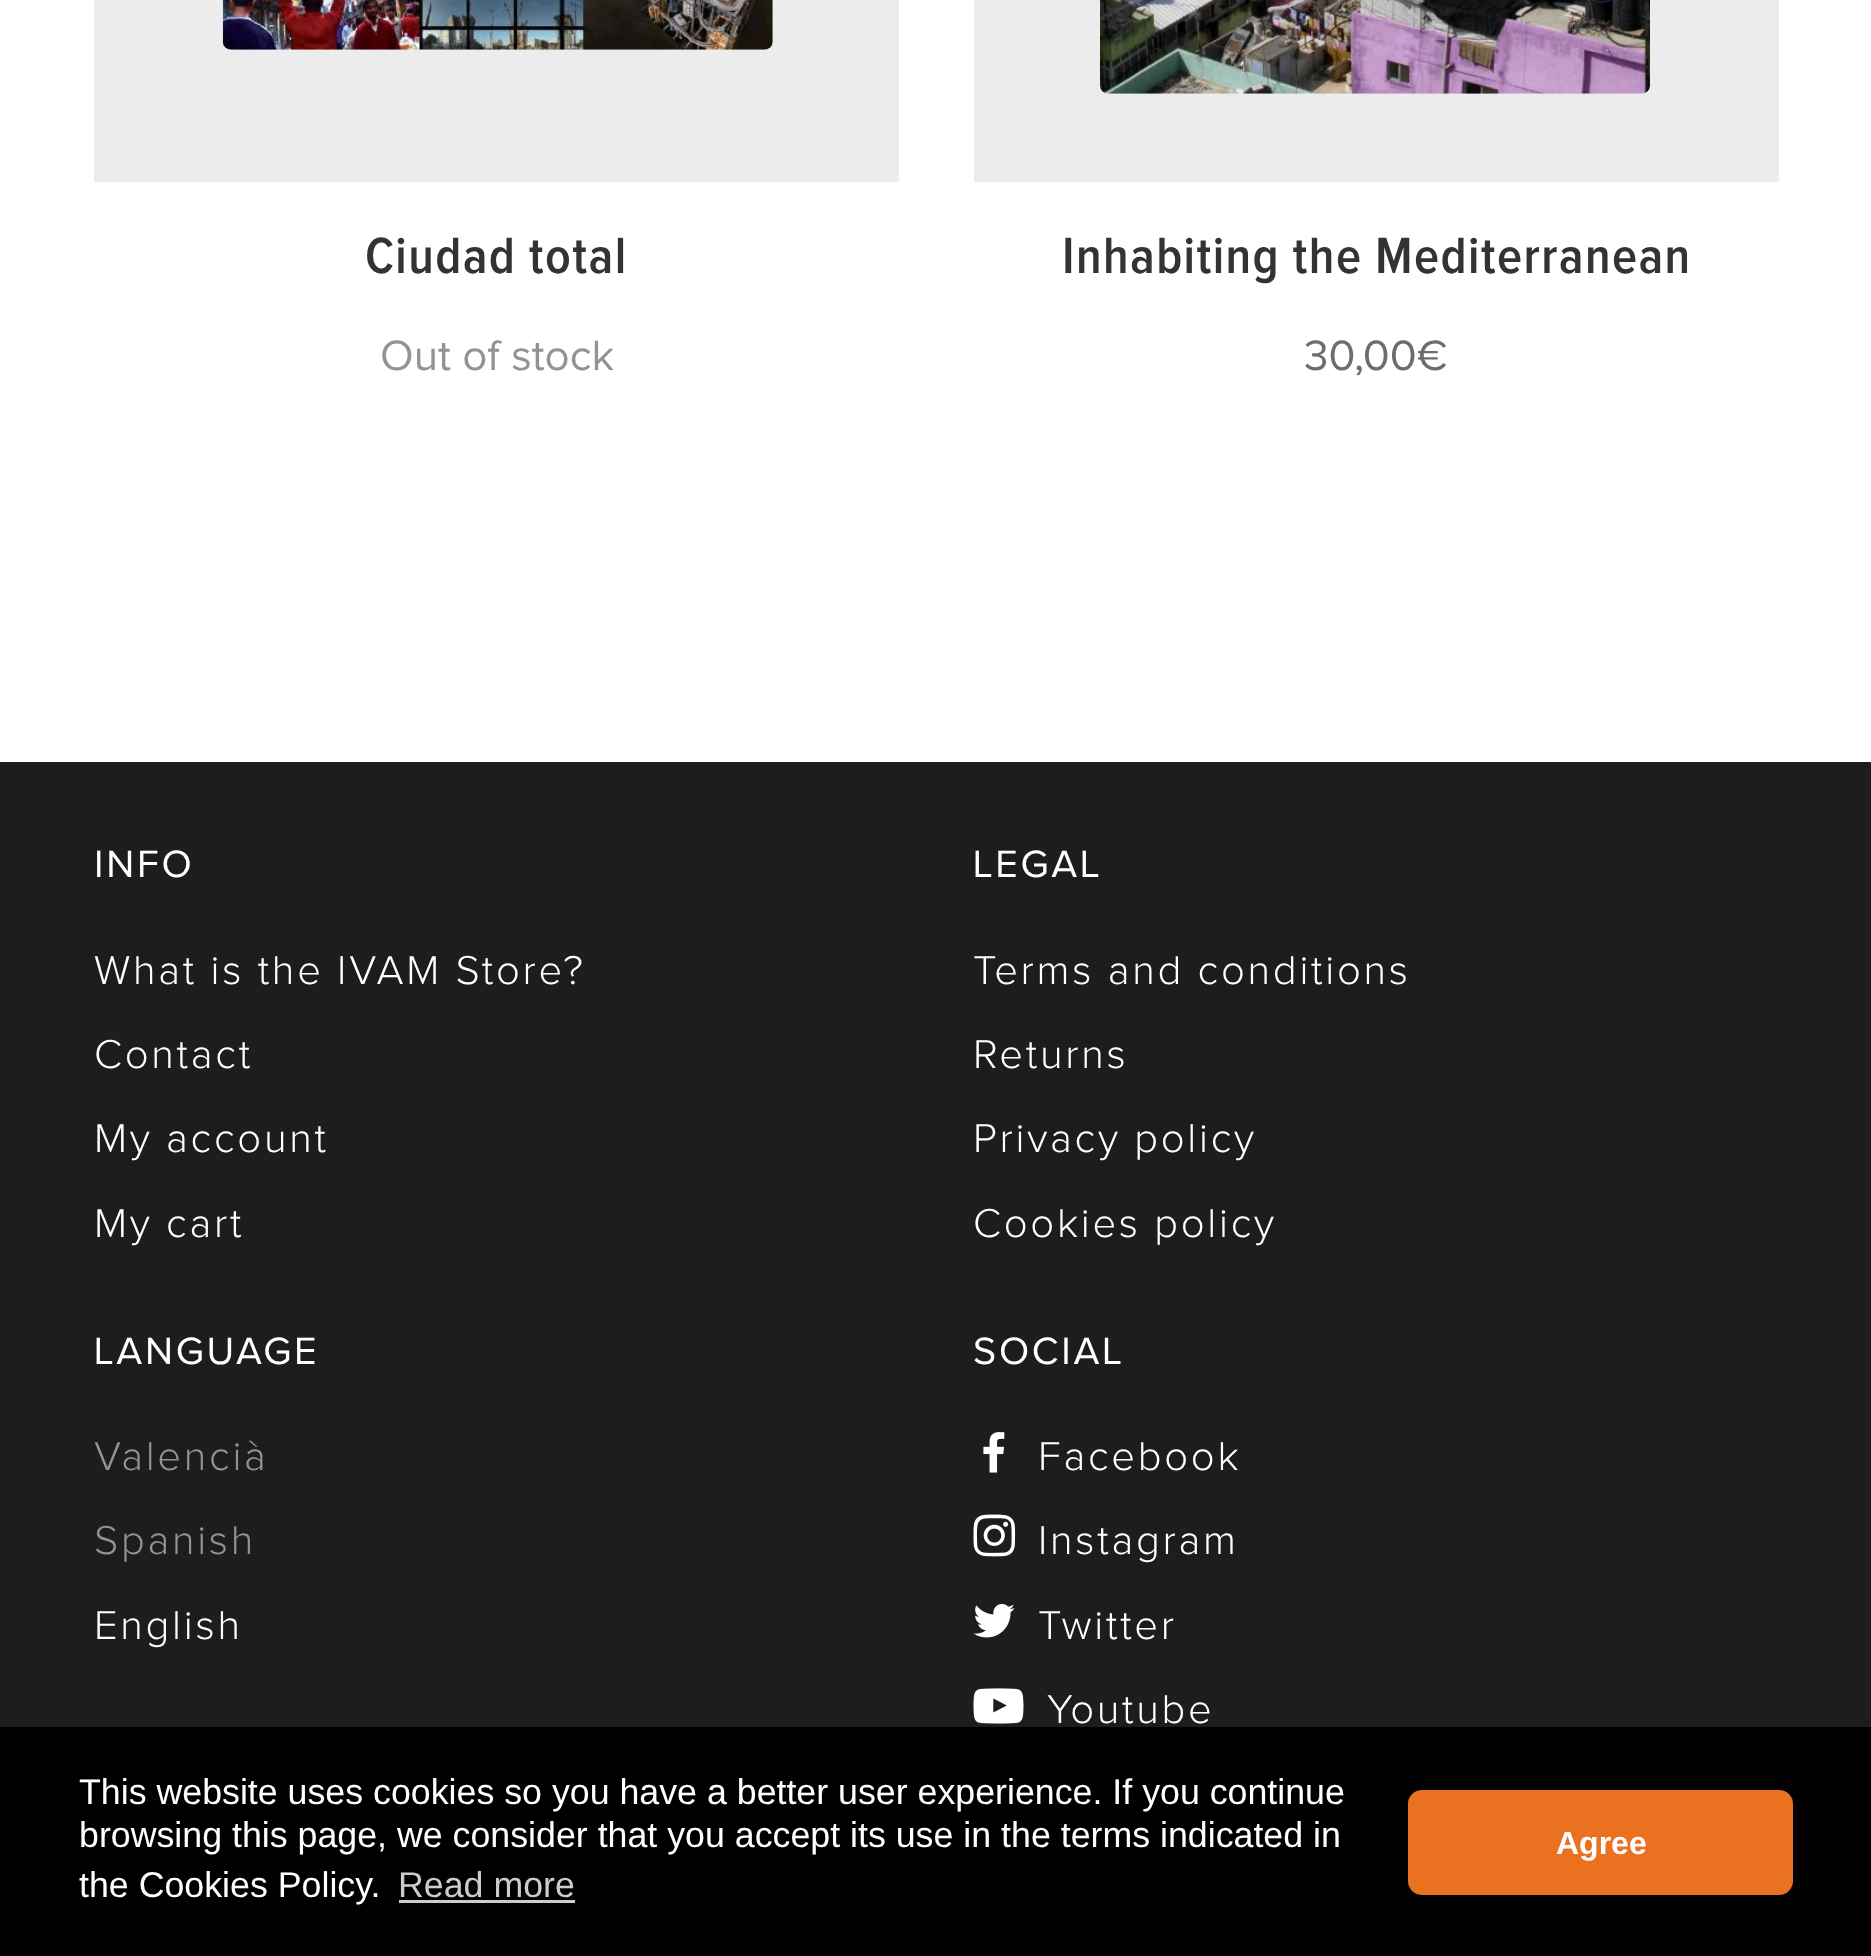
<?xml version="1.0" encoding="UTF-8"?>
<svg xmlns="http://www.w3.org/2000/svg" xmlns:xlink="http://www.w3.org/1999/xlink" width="1871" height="1956">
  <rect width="100%" height="100%" fill="#ffffff" />
  <rect x="94" width="805" height="182" fill="#ececec" />
  <image x="222" y="0" width="551" height="50" xlink:href="image1.png" />
  <rect x="974" width="805" height="182" fill="#ececec" />
  <image x="1100" y="0" width="550" height="94" xlink:href="image2.png" />
  <rect y="762" width="1871" height="965" fill="#1d1d1b" />
  <image x="983" y="1432" width="22" height="41" xlink:href="image3.png" />
  <image x="973" y="1514" width="43" height="43" xlink:href="image4.png" />
  <image x="973" y="1604" width="42" height="34" xlink:href="image5.png" />
  <image x="973" y="1688" width="51" height="36" xlink:href="image6.png" />
  <rect y="1727" width="1871" height="229" fill="#000000" />
  <rect x="399" y="1900" width="176" height="3" fill="#cccccc" />
  <rect x="1408" y="1790" width="385" height="105" rx="14" fill="#ea7120" />
  <text x="365" y="273" style="font-family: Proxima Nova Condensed; font-size: 52.75px; font-weight: 600; letter-spacing: 1.4px; fill: #333333">Ciudad total</text>
  <text x="380" y="370" style="font-family: Proxima Nova; font-size: 44px; fill: #919494">Out of stock</text>
  <text x="1062" y="273" style="font-family: Proxima Nova Condensed; font-size: 52.75px; font-weight: 600; letter-spacing: 1.4px; fill: #333333">Inhabiting the Mediterranean</text>
  <text x="1304" y="370" style="font-family: Proxima Nova; font-size: 44px; fill: #6d6d6d">30,00€</text>
  <text x="94" y="877" style="font-family: Proxima Nova; font-size: 39.5px; letter-spacing: 2.75px; fill: #ffffff">INFO</text>
  <text x="94" y="984" style="font-family: Proxima Nova; font-size: 41.75px; font-weight: 300; letter-spacing: 2.75px; fill: #ffffff">What is the IVAM Store?</text>
  <text x="94" y="1068" style="font-family: Proxima Nova; font-size: 41.75px; font-weight: 300; letter-spacing: 2.75px; fill: #ffffff">Contact</text>
  <text x="94" y="1152" style="font-family: Proxima Nova; font-size: 41.75px; font-weight: 300; letter-spacing: 2.75px; fill: #ffffff">My account</text>
  <text x="94" y="1237" style="font-family: Proxima Nova; font-size: 41.75px; font-weight: 300; letter-spacing: 2.75px; fill: #ffffff">My cart</text>
  <text x="973" y="877" style="font-family: Proxima Nova; font-size: 39.5px; letter-spacing: 2.75px; fill: #ffffff">LEGAL</text>
  <text x="973" y="984" style="font-family: Proxima Nova; font-size: 41.75px; font-weight: 300; letter-spacing: 2.75px; fill: #ffffff">Terms and conditions</text>
  <text x="973" y="1068" style="font-family: Proxima Nova; font-size: 41.75px; font-weight: 300; letter-spacing: 2.75px; fill: #ffffff">Returns</text>
  <text x="973" y="1152" style="font-family: Proxima Nova; font-size: 41.75px; font-weight: 300; letter-spacing: 2.75px; fill: #ffffff">Privacy policy</text>
  <text x="973" y="1237" style="font-family: Proxima Nova; font-size: 41.75px; font-weight: 300; letter-spacing: 2.75px; fill: #ffffff">Cookies policy</text>
  <text x="94" y="1364" style="font-family: Proxima Nova; font-size: 39.5px; letter-spacing: 2.75px; fill: #ffffff">LANGUAGE</text>
  <text x="94" y="1470" style="font-family: Proxima Nova; font-size: 41.75px; font-weight: 300; letter-spacing: 2.75px; fill: #919494">Valencià</text>
  <text x="94" y="1554" style="font-family: Proxima Nova; font-size: 41.75px; font-weight: 300; letter-spacing: 2.75px; fill: #919494">Spanish</text>
  <text x="94" y="1639" style="font-family: Proxima Nova; font-size: 41.75px; font-weight: 300; letter-spacing: 2.75px; fill: #ffffff">English</text>
  <text x="973" y="1364" style="font-family: Proxima Nova; font-size: 39.5px; letter-spacing: 2.75px; fill: #ffffff">SOCIAL</text>
  <text x="1038" y="1470" style="font-family: Proxima Nova; font-size: 41.75px; font-weight: 300; letter-spacing: 2.75px; fill: #ffffff">Facebook</text>
  <text x="1038" y="1554" style="font-family: Proxima Nova; font-size: 41.75px; font-weight: 300; letter-spacing: 2.75px; fill: #ffffff">Instagram</text>
  <text x="1038" y="1639" style="font-family: Proxima Nova; font-size: 41.75px; font-weight: 300; letter-spacing: 2.75px; fill: #ffffff">Twitter</text>
  <text x="1047" y="1723" style="font-family: Proxima Nova; font-size: 41.75px; font-weight: 300; letter-spacing: 2.75px; fill: #ffffff">Youtube</text>
  <text x="79" y="1804" style="font-family: Liberation Sans; font-size: 35.75px; fill: #ffffff">This website uses cookies so you have a better user experience. If you continue</text>
  <text x="79" y="1847" style="font-family: Liberation Sans; font-size: 35.75px; fill: #ffffff">browsing this page, we consider that you accept its use in the terms indicated in</text>
  <text x="79" y="1897" style="font-family: Liberation Sans; font-size: 35.75px; fill: #ffffff">the Cookies Policy.</text>
  <text x="398" y="1897" style="font-family: Liberation Sans; font-size: 35.75px; fill: #cccccc">Read more</text>
  <text x="1556" y="1854" style="font-family: Liberation Sans; font-size: 32px; font-weight: bold; fill: #ffffff">Agree</text>
</svg>
